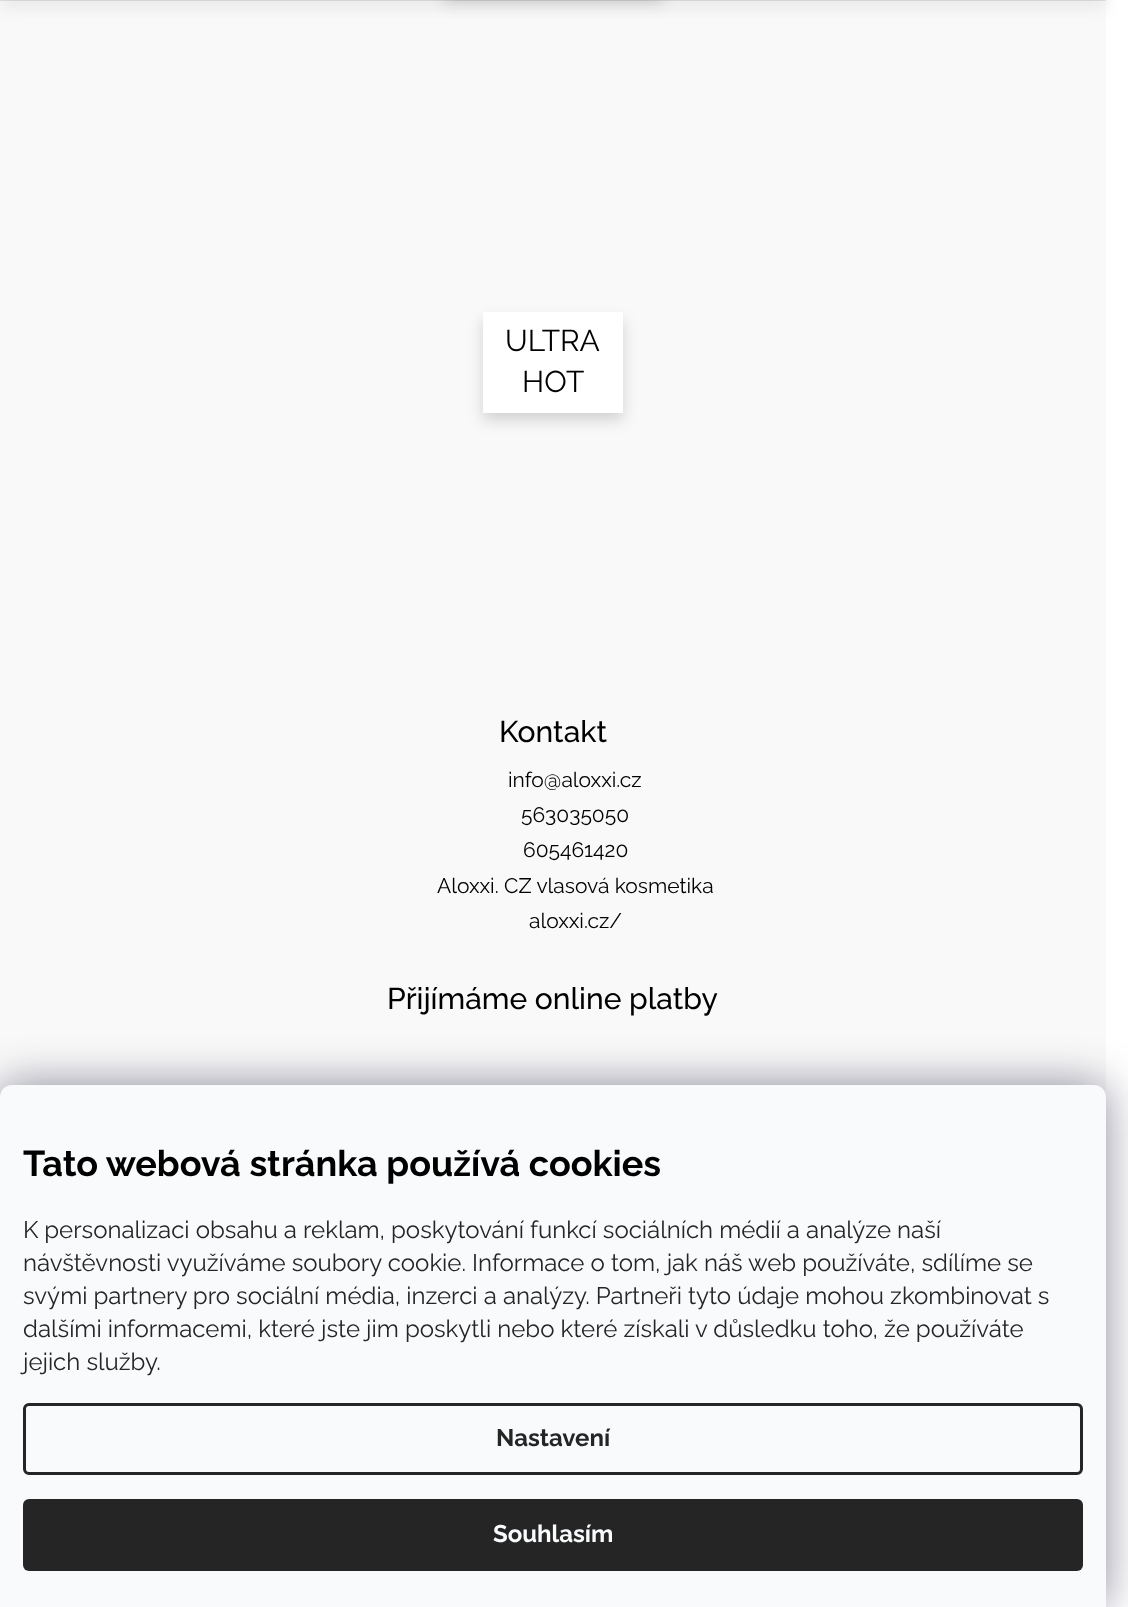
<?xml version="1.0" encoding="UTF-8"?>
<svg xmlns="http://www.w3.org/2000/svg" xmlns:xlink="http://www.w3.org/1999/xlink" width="1128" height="1607">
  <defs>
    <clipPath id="clip1"><path d="M 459 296 h 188 v 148 h -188 z m 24 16 h 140 v 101 h -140 z" clip-rule="evenodd" /></clipPath>
  </defs>
  <rect width="100%" height="100%" fill="#ffffff" />
  <rect width="1106" height="1097" fill="#f9f9f9" />
  <rect y="-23" width="1106" height="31" fill="#e9e9e9" filter="blur(7.5px)" />
  <rect x="444" y="-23" width="218" height="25" fill="#000000" fill-opacity="0.16" filter="blur(7.5px)" />
  <rect width="1106" height="1" fill="#000000" fill-opacity="0.09" />
  <g clip-path="url(#clip1)">
    <rect x="483" y="320" width="140" height="100" fill="#000000" fill-opacity="0.16" filter="blur(7.5px)" />
  </g>
  <rect x="484" y="313" width="138" height="99" fill="#ffffff" fill-opacity="0.9" stroke="#ffffff" stroke-width="2" />
  <rect y="1085" width="1106" height="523" rx="12" fill="#1b1939" fill-opacity="0.5" filter="blur(22.5px)" />
  <path d="M 12 1085 h 1082 c 6.5 0 12 5.5 12 12 v 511 h -1106 v -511 c 0 -6.5 5.5 -12 12 -12 z" fill="#f8fafb" />
  <rect x="24.5" y="1404.5" width="1057" height="69" rx="4.5" fill="none" stroke="#252525" stroke-width="3" />
  <rect x="23" y="1499" width="1060" height="72" rx="6" fill="#252525" />
  <text x="505" y="351" style="font-family: Raleway; font-size: 30px; fill: #000000">ULTRA</text>
  <text x="522" y="392" style="font-family: Raleway; font-size: 30px; fill: #000000">HOT</text>
  <text x="499" y="742" style="font-family: Raleway; font-size: 30px; font-weight: 500; fill: #000000">Kontakt</text>
  <text x="508" y="787" style="font-family: Raleway; font-size: 21px; fill: #000000">info@aloxxi.cz</text>
  <text x="521" y="822" style="font-family: Raleway; font-size: 21px; fill: #000000">563035050</text>
  <text x="523" y="857" style="font-family: Raleway; font-size: 21px; fill: #000000">605461420</text>
  <text x="437" y="893" style="font-family: Raleway; font-size: 21px; fill: #000000">Aloxxi. CZ vlasová kosmetika</text>
  <text x="529" y="928" style="font-family: Raleway; font-size: 21px; fill: #000000">aloxxi.cz/</text>
  <text x="387" y="1009" style="font-family: Raleway; font-size: 30px; font-weight: 500; fill: #000000">Přijímáme online platby</text>
  <text x="23" y="1176" style="font-family: Raleway; font-size: 36px; font-weight: bold; fill: #000000">Tato webová stránka používá cookies</text>
  <text x="23" y="1238" style="font-family: Raleway; font-size: 24px; fill: #252525">K personalizaci obsahu a reklam, poskytování funkcí sociálních médií a analýze naší</text>
  <text x="23" y="1271" style="font-family: Raleway; font-size: 24px; fill: #252525">návštěvnosti využíváme soubory cookie. Informace o tom, jak náš web používáte, sdílíme se</text>
  <text x="23" y="1304" style="font-family: Raleway; font-size: 24px; fill: #252525">svými partnery pro sociální média, inzerci a analýzy. Partneři tyto údaje mohou zkombinovat s</text>
  <text x="23" y="1337" style="font-family: Raleway; font-size: 24px; fill: #252525">dalšími informacemi, které jste jim poskytli nebo které získali v důsledku toho, že používáte</text>
  <text x="23" y="1370" style="font-family: Raleway; font-size: 24px; fill: #252525">jejich služby.</text>
  <text x="496" y="1446" style="font-family: Raleway; font-size: 24px; font-weight: bold; fill: #252525">Nastavení</text>
  <text x="493" y="1542" style="font-family: Raleway; font-size: 24px; font-weight: bold; fill: #f8fafb">Souhlasím</text>
</svg>
